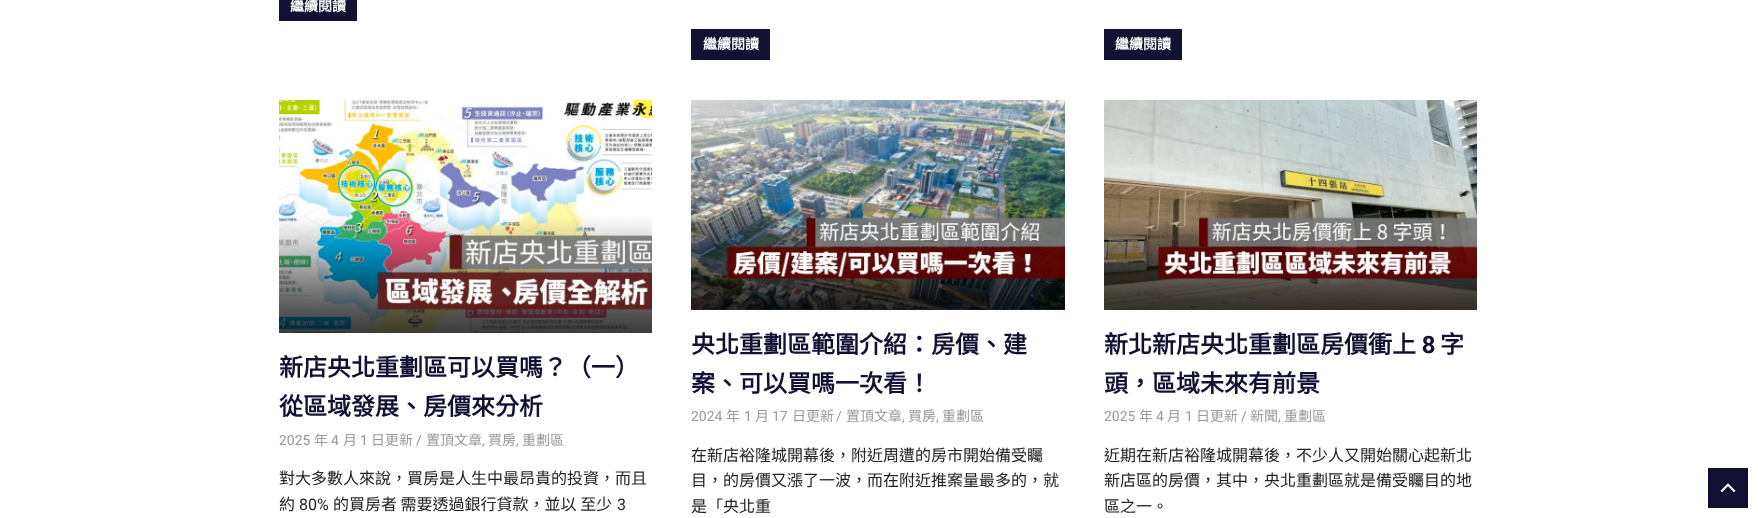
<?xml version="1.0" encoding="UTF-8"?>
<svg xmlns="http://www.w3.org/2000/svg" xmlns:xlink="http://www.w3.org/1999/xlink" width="1758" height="518">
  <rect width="100%" height="100%" fill="#ffffff" />
  <rect x="279" width="78" height="21" fill="#111133" />
  <rect x="691" y="29" width="79" height="31" fill="#111133" />
  <rect x="1104" y="29" width="78" height="31" fill="#111133" />
  <image x="279" y="100" width="373" height="233" xlink:href="image1.png" />
  <image x="691" y="100" width="374" height="210" xlink:href="image2.png" />
  <image x="1104" y="100" width="373" height="210" xlink:href="image3.png" />
  <rect x="1708" y="468" width="40" height="40" fill="#111133" />
  <image x="1720" y="483" width="16" height="10" xlink:href="image4.png" />
  <text x="290" y="11" style="font-family: Noto Sans CJK TC; font-size: 14px; font-weight: bold; fill: #ffffff">繼續閱讀</text>
  <text x="703" y="49" style="font-family: Noto Sans CJK TC; font-size: 14px; font-weight: bold; fill: #ffffff">繼續閱讀</text>
  <text x="1115" y="49" style="font-family: Noto Sans CJK TC; font-size: 14px; font-weight: bold; fill: #ffffff">繼續閱讀</text>
  <text x="279" y="376" style="font-family: Noto Sans CJK TC; font-size: 24px; font-weight: bold; fill: #111133">新店央北重劃區可以買嗎？（一）</text>
  <text x="279" y="415" style="font-family: Noto Sans CJK TC; font-size: 24px; font-weight: bold; fill: #111133">從區域發展、房價來分析</text>
  <text x="279" y="445" style="font-family: Roboto; font-size: 14px; fill: #999999">2025</text>
  <text x="314" y="445" style="font-family: Noto Sans CJK TC; font-size: 14px; fill: #999999">年</text>
  <text x="331" y="445" style="font-family: Roboto; font-size: 14px; fill: #999999">4</text>
  <text x="343" y="445" style="font-family: Noto Sans CJK TC; font-size: 14px; fill: #999999">月</text>
  <text x="360" y="445" style="font-family: Roboto; font-size: 14px; fill: #999999">1</text>
  <text x="371" y="445" style="font-family: Noto Sans CJK TC; font-size: 14px; fill: #999999">日更新</text>
  <text x="416" y="445" style="font-family: Roboto; font-size: 14px; fill: #999999">/</text>
  <text x="426" y="445" style="font-family: Noto Sans CJK TC; font-size: 14px; fill: #999999">置頂文章</text>
  <text x="482" y="445" style="font-family: Roboto; font-size: 14px; fill: #999999">,</text>
  <text x="488" y="445" style="font-family: Noto Sans CJK TC; font-size: 14px; fill: #999999">買房</text>
  <text x="516" y="445" style="font-family: Roboto; font-size: 14px; fill: #999999">,</text>
  <text x="522" y="445" style="font-family: Noto Sans CJK TC; font-size: 14px; fill: #999999">重劃區</text>
  <text x="279" y="484" style="font-family: Noto Sans CJK TC; font-size: 16px; fill: #222222">對大多數人來說，買房是人生中最昂貴的投資，而且</text>
  <text x="279" y="510" style="font-family: Noto Sans CJK TC; font-size: 16px; fill: #222222">約</text>
  <text x="299" y="510" style="font-family: Roboto; font-size: 16px; fill: #222222">80%</text>
  <text x="333" y="510" style="font-family: Noto Sans CJK TC; font-size: 16px; fill: #222222">的買房者 需要透過銀行貸款，並以 至少</text>
  <text x="617" y="510" style="font-family: Roboto; font-size: 16px; fill: #222222">3</text>
  <text x="691" y="353" style="font-family: Noto Sans CJK TC; font-size: 24px; font-weight: bold; fill: #111133">央北重劃區範圍介紹：房價、建</text>
  <text x="691" y="392" style="font-family: Noto Sans CJK TC; font-size: 24px; font-weight: bold; fill: #111133">案、可以買嗎一次看！</text>
  <text x="691" y="421" style="font-family: Roboto; font-size: 14px; fill: #999999">2024</text>
  <text x="726" y="421" style="font-family: Noto Sans CJK TC; font-size: 14px; fill: #999999">年</text>
  <text x="744" y="421" style="font-family: Roboto; font-size: 14px; fill: #999999">1</text>
  <text x="755" y="421" style="font-family: Noto Sans CJK TC; font-size: 14px; fill: #999999">月</text>
  <text x="772" y="421" style="font-family: Roboto; font-size: 14px; fill: #999999">17</text>
  <text x="792" y="421" style="font-family: Noto Sans CJK TC; font-size: 14px; fill: #999999">日更新</text>
  <text x="836" y="421" style="font-family: Roboto; font-size: 14px; fill: #999999">/</text>
  <text x="846" y="421" style="font-family: Noto Sans CJK TC; font-size: 14px; fill: #999999">置頂文章</text>
  <text x="902" y="421" style="font-family: Roboto; font-size: 14px; fill: #999999">,</text>
  <text x="908" y="421" style="font-family: Noto Sans CJK TC; font-size: 14px; fill: #999999">買房</text>
  <text x="936" y="421" style="font-family: Roboto; font-size: 14px; fill: #999999">,</text>
  <text x="942" y="421" style="font-family: Noto Sans CJK TC; font-size: 14px; fill: #999999">重劃區</text>
  <text x="691" y="461" style="font-family: Noto Sans CJK TC; font-size: 16px; fill: #222222">在新店裕隆城開幕後，附近周遭的房市開始備受矚</text>
  <text x="691" y="486" style="font-family: Noto Sans CJK TC; font-size: 16px; fill: #222222">目，的房價又漲了一波，而在附近推案量最多的，就</text>
  <text x="691" y="512" style="font-family: Noto Sans CJK TC; font-size: 16px; fill: #222222">是「央北重</text>
  <text x="1104" y="353" style="font-family: Noto Sans CJK TC; font-size: 24px; font-weight: bold; fill: #111133">新北新店央北重劃區房價衝上</text>
  <text x="1422" y="353" style="font-family: Roboto Slab; font-size: 24px; font-weight: bold; fill: #111133">8</text>
  <text x="1440" y="353" style="font-family: Noto Sans CJK TC; font-size: 24px; font-weight: bold; fill: #111133">字</text>
  <text x="1104" y="392" style="font-family: Noto Sans CJK TC; font-size: 24px; font-weight: bold; fill: #111133">頭，區域未來有前景</text>
  <text x="1104" y="421" style="font-family: Roboto; font-size: 14px; fill: #999999">2025</text>
  <text x="1139" y="421" style="font-family: Noto Sans CJK TC; font-size: 14px; fill: #999999">年</text>
  <text x="1156" y="421" style="font-family: Roboto; font-size: 14px; fill: #999999">4</text>
  <text x="1167" y="421" style="font-family: Noto Sans CJK TC; font-size: 14px; fill: #999999">月</text>
  <text x="1185" y="421" style="font-family: Roboto; font-size: 14px; fill: #999999">1</text>
  <text x="1196" y="421" style="font-family: Noto Sans CJK TC; font-size: 14px; fill: #999999">日更新</text>
  <text x="1241" y="421" style="font-family: Roboto; font-size: 14px; fill: #999999">/</text>
  <text x="1250" y="421" style="font-family: Noto Sans CJK TC; font-size: 14px; fill: #999999">新聞</text>
  <text x="1278" y="421" style="font-family: Roboto; font-size: 14px; fill: #999999">,</text>
  <text x="1284" y="421" style="font-family: Noto Sans CJK TC; font-size: 14px; fill: #999999">重劃區</text>
  <text x="1104" y="461" style="font-family: Noto Sans CJK TC; font-size: 16px; fill: #222222">近期在新店裕隆城開幕後，不少人又開始關心起新北</text>
  <text x="1104" y="486" style="font-family: Noto Sans CJK TC; font-size: 16px; fill: #222222">新店區的房價，其中，央北重劃區就是備受矚目的地</text>
  <text x="1104" y="512" style="font-family: Noto Sans CJK TC; font-size: 16px; fill: #222222">區之一。</text>
</svg>
